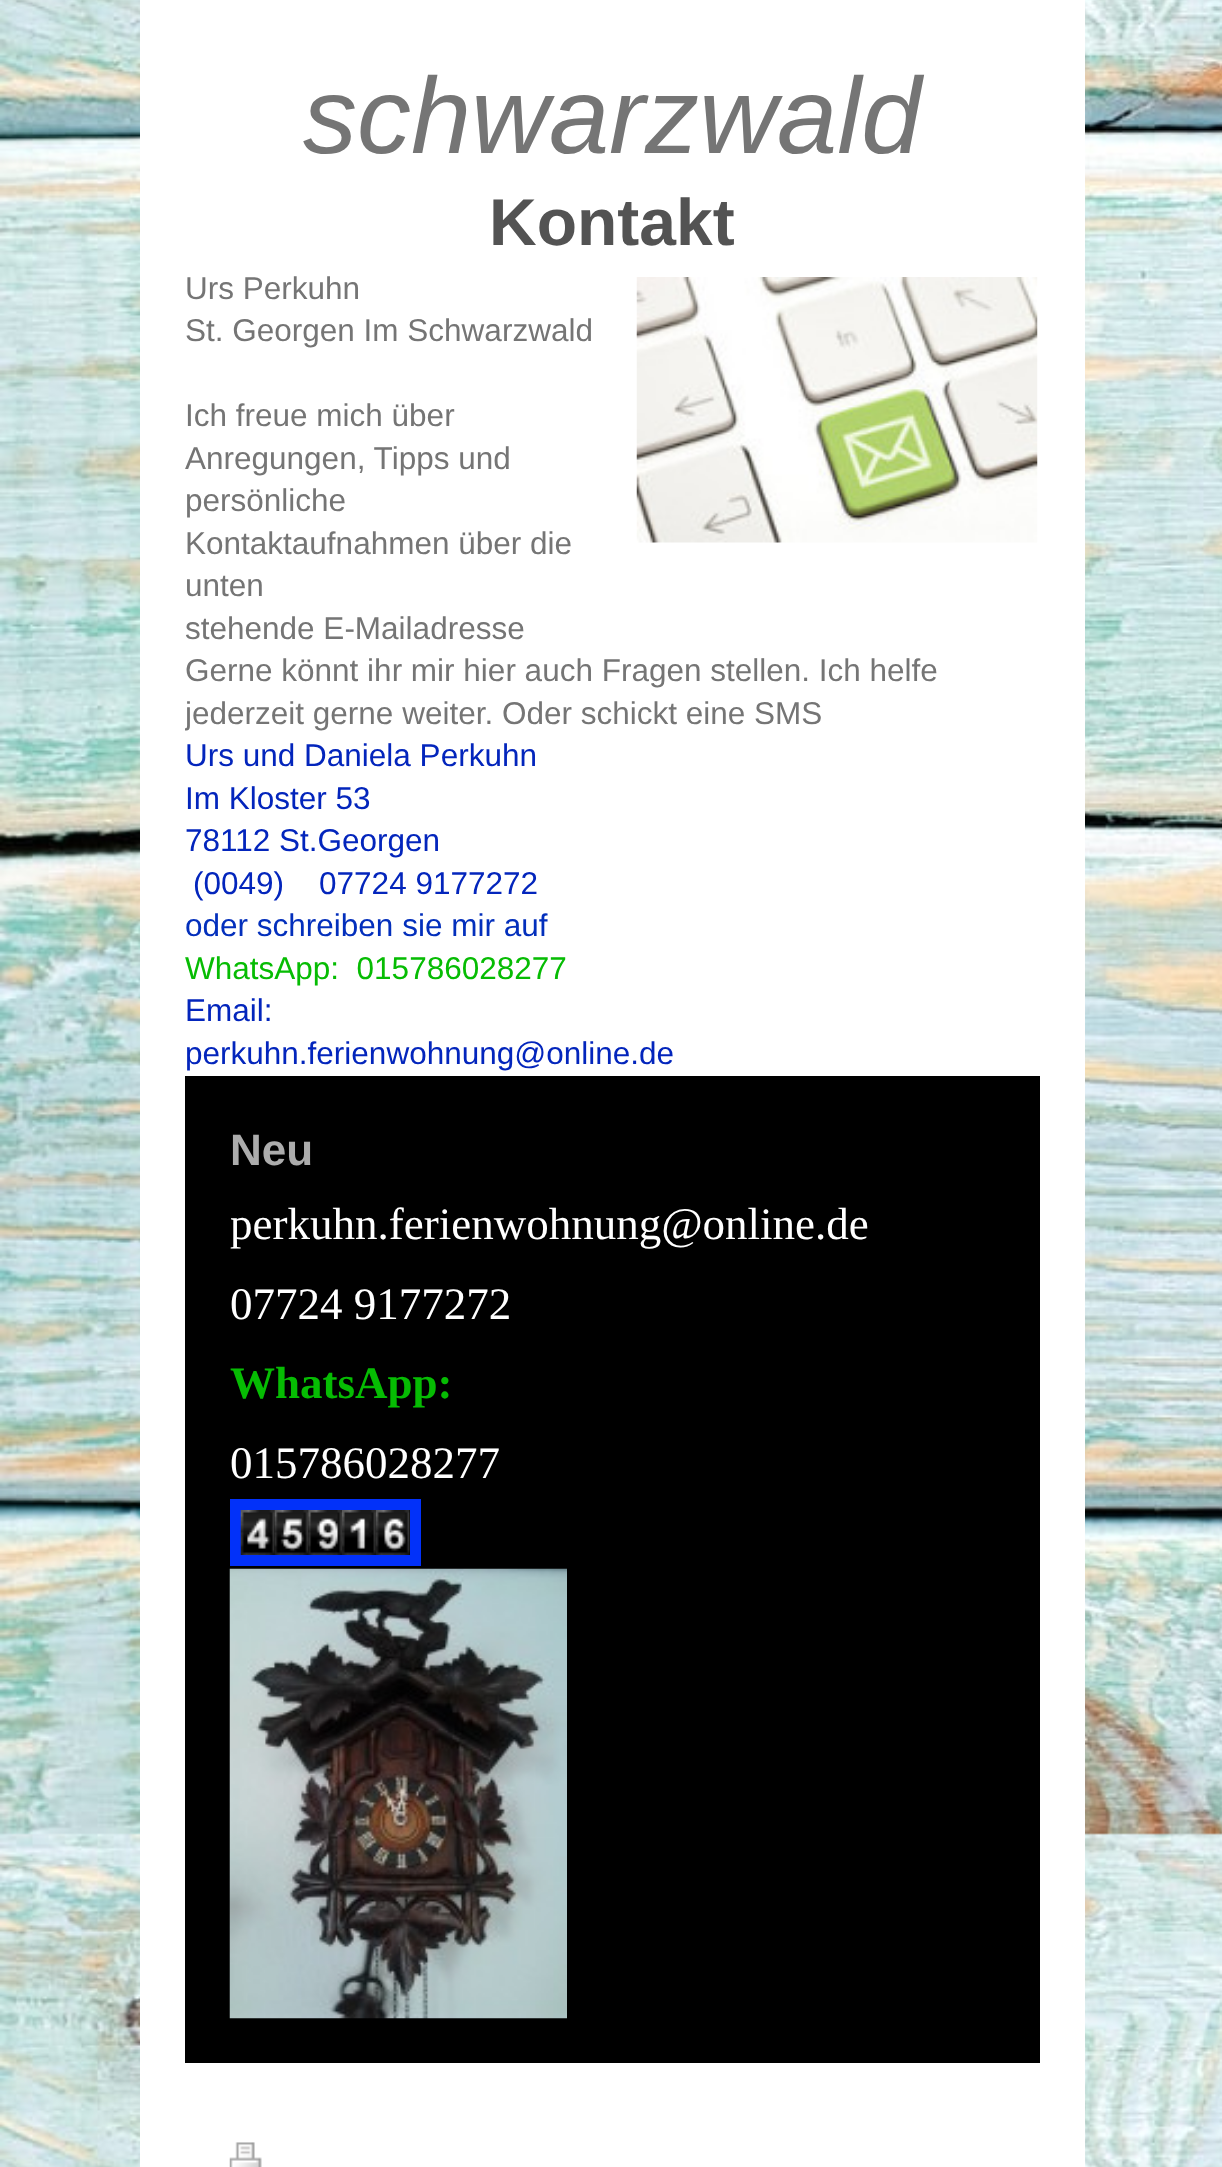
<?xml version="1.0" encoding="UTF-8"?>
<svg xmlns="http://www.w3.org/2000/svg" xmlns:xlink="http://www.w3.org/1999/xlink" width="1222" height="2167">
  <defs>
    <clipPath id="clip1"><rect x="185" y="268" width="855" height="466" /></clipPath>
  </defs>
  <rect width="100%" height="100%" fill="#ffffff" />
  <image x="0" y="0" width="1222" height="2167" xlink:href="image1.png" />
  <rect x="140" width="945" height="2167" fill="#ffffff" />
  <image x="636" y="277" width="402" height="266" xlink:href="image2.png" />
  <rect x="185" y="1076" width="855" height="987" fill="#000000" />
  <rect x="235.5" y="1504.5" width="180" height="56" fill="none" stroke="#0231f9" stroke-width="11" />
  <image x="240" y="1510" width="35" height="45" xlink:href="image3.png" />
  <image x="274" y="1510" width="35" height="45" xlink:href="image4.png" />
  <image x="308" y="1510" width="34" height="45" xlink:href="image5.png" />
  <image x="342" y="1510" width="34" height="45" xlink:href="image6.png" />
  <image x="375" y="1510" width="35" height="45" xlink:href="image7.png" />
  <image x="229" y="1568" width="338" height="451" xlink:href="image8.png" />
  <image x="229" y="2142" width="33" height="25" xlink:href="image9.png" />
  <text x="303" y="153" style="font-family: Liberation Sans; font-size: 108px; font-style: italic; fill: #757575">schwarzwald</text>
  <text x="489" y="245" style="font-family: Liberation Sans; font-size: 66px; font-weight: bold; fill: #535353">Kontakt</text>
  <text x="185" y="299" style="font-family: Liberation Sans; font-size: 31.5px; fill: #757575">Urs Perkuhn</text>
  <text x="185" y="341" style="font-family: Liberation Sans; font-size: 31.5px; fill: #757575">St. Georgen Im Schwarzwald</text>
  <text x="185" y="426" style="font-family: Liberation Sans; font-size: 31.5px; fill: #757575">Ich freue mich über</text>
  <text x="185" y="469" style="font-family: Liberation Sans; font-size: 31.5px; fill: #757575">Anregungen, Tipps und</text>
  <text x="185" y="511" style="font-family: Liberation Sans; font-size: 31.5px; fill: #757575">persönliche</text>
  <text x="185" y="554" style="font-family: Liberation Sans; font-size: 31.5px; fill: #757575">Kontaktaufnahmen über die</text>
  <text x="185" y="596" style="font-family: Liberation Sans; font-size: 31.5px; fill: #757575">unten</text>
  <text x="185" y="639" style="font-family: Liberation Sans; font-size: 31.5px; fill: #757575">stehende E-Mailadresse</text>
  <text x="185" y="681" style="font-family: Liberation Sans; font-size: 31.5px; fill: #757575">Gerne könnt ihr mir hier auch Fragen stellen. Ich helfe</text>
  <g clip-path="url(#clip1)">
    <text x="185" y="724" style="font-family: Liberation Sans; font-size: 31.5px; fill: #757575">jederzeit gerne weiter. Oder schickt eine SMS</text>
  </g>
  <text x="185" y="766" style="font-family: Liberation Sans; font-size: 31.5px; fill: #0325bc">Urs und Daniela Perkuhn</text>
  <text x="185" y="809" style="font-family: Liberation Sans; font-size: 31.5px; fill: #0325bc">Im Kloster 53</text>
  <text x="185" y="851" style="font-family: Liberation Sans; font-size: 31.5px; fill: #0325bc">78112 St.Georgen</text>
  <text x="193" y="894" style="font-family: Liberation Sans; font-size: 31.5px; fill: #0325bc" xml:space="preserve">(0049)    07724 9177272</text>
  <text x="185" y="936" style="font-family: Liberation Sans; font-size: 31.5px; fill: #032fbc">oder schreiben sie mir auf</text>
  <text x="185" y="979" style="font-family: Liberation Sans; font-size: 31.5px; fill: #06bc03" xml:space="preserve">WhatsApp:  015786028277</text>
  <text x="185" y="1021" style="font-family: Liberation Sans; font-size: 31.5px; fill: #0325bc">Email:</text>
  <text x="185" y="1064" style="font-family: Liberation Sans; font-size: 31.5px; fill: #0325bc">perkuhn.ferienwohnung@online.de</text>
  <text x="230" y="1165" style="font-family: Liberation Sans; font-size: 44px; font-weight: bold; fill: #acacac">Neu</text>
  <text x="230" y="1239" style="font-family: Liberation Serif; font-size: 45px; fill: #ffffff">perkuhn.ferienwohnung@online.de</text>
  <text x="230" y="1319" style="font-family: Liberation Serif; font-size: 45px; fill: #ffffff">07724 9177272</text>
  <text x="230" y="1398" style="font-family: Liberation Serif; font-size: 45px; font-weight: bold; fill: #06bc03">WhatsApp:</text>
  <text x="230" y="1478" style="font-family: Liberation Serif; font-size: 45px; fill: #ffffff">015786028277</text>
</svg>
